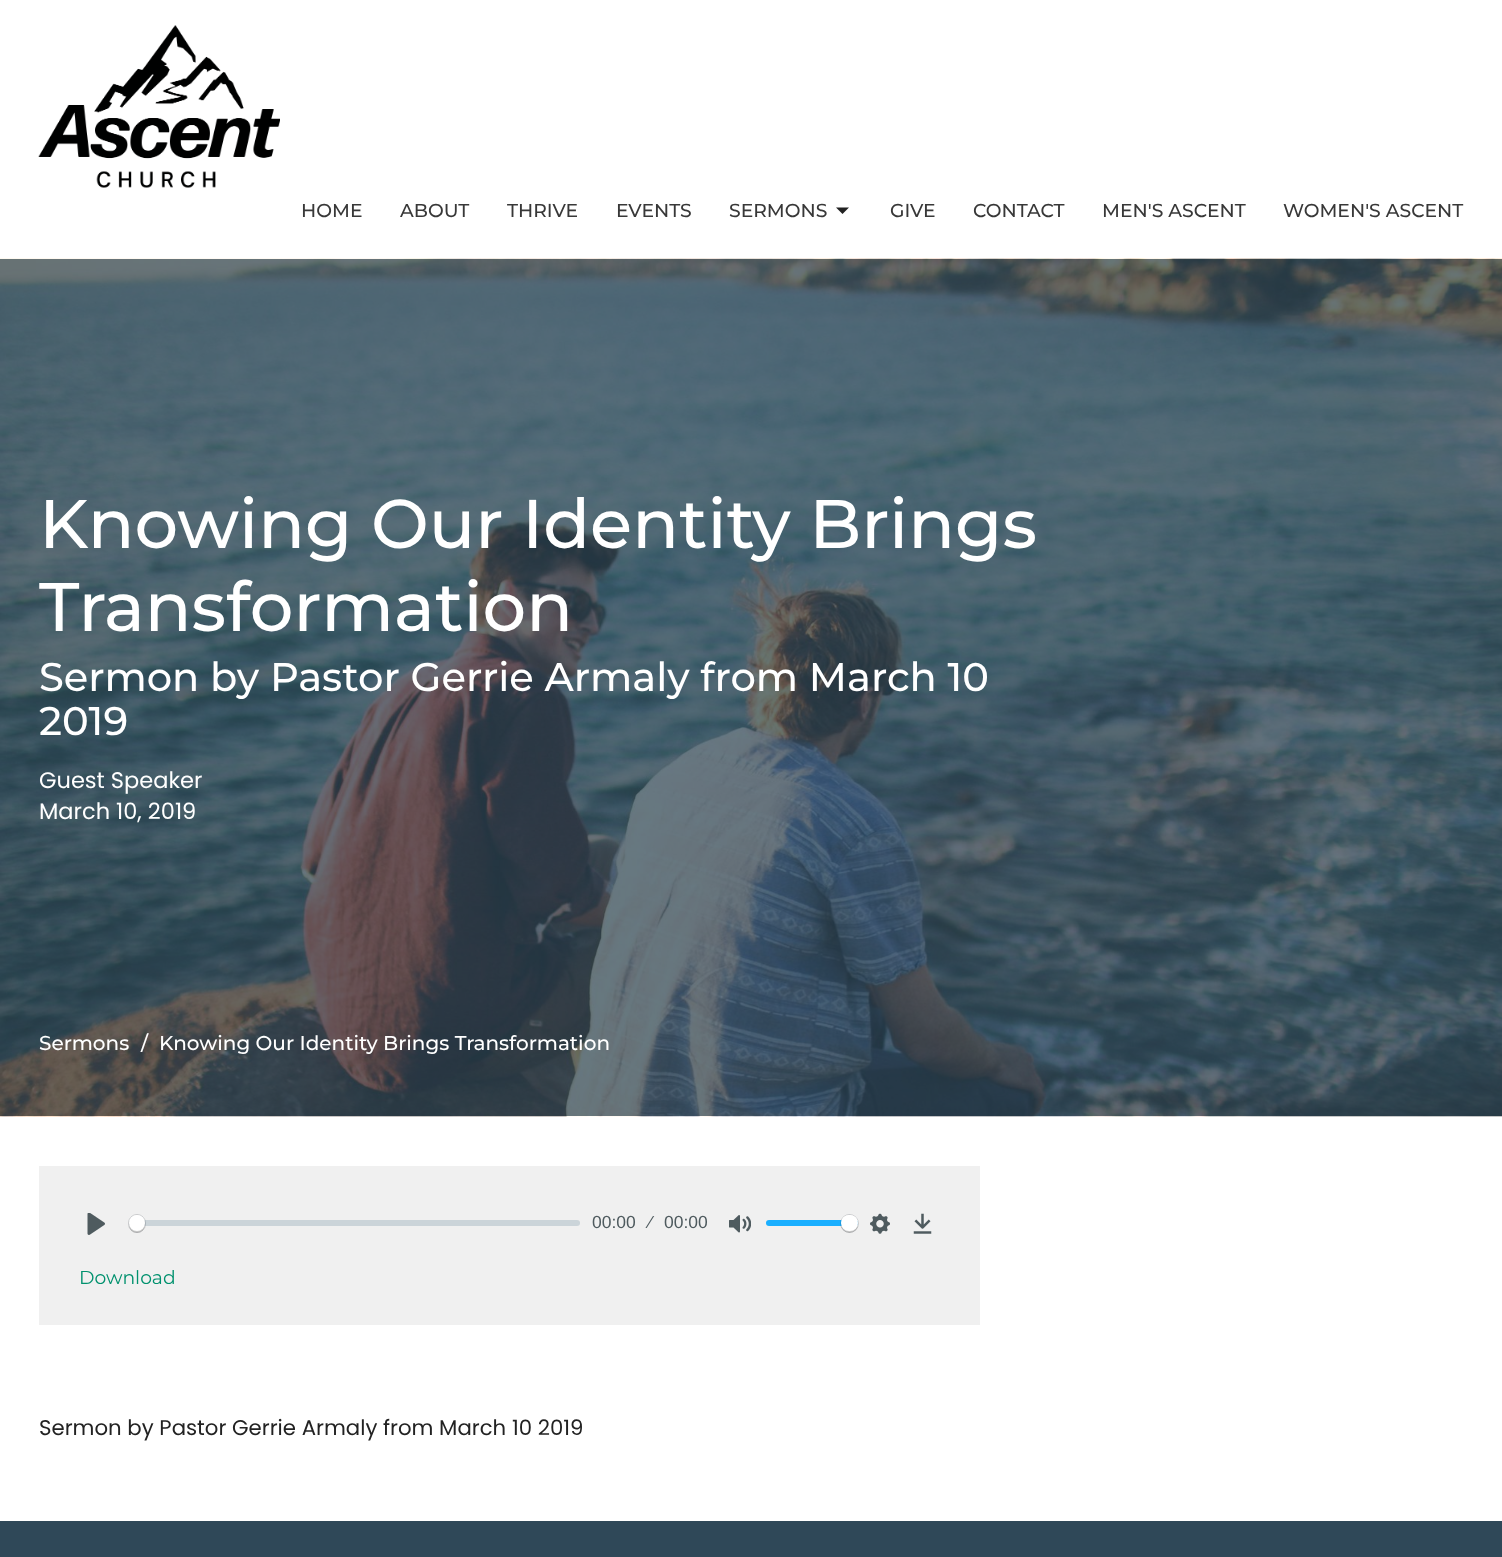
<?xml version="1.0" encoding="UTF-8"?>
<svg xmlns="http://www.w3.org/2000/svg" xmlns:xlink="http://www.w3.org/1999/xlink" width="1502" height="1557">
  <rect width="100%" height="100%" fill="#ffffff" />
  <image x="38" y="25" width="242" height="163" xlink:href="image1.png" />
  <path d="M 836 207.5 l 6.5 6.5 l 6.5 -6.5 z" fill="#222222" />
  <image x="0" y="258" width="1502" height="859" xlink:href="image2.png" />
  <rect x="39" y="1166" width="941" height="159" fill="#f0f0f0" />
  <image x="87" y="1213" width="18" height="22" xlink:href="image3.png" />
  <rect x="129" y="1220" width="451" height="6" rx="3" fill="#b7c5cd" fill-opacity="0.66" />
  <rect x="128.5" y="1214.5" width="17" height="18" rx="8.5" fill="none" stroke="#2f343d" stroke-opacity="0.2" />
  <rect x="129" y="1216" width="16" height="17" rx="8" fill="#000000" fill-opacity="0.15" filter="blur(0.5px)" />
  <circle cx="137" cy="1223" r="8" fill="#ffffff" />
  <image x="729" y="1215" width="22" height="18" xlink:href="image4.png" />
  <rect x="766" y="1220" width="92" height="6" rx="3" fill="#1aafff" />
  <circle cx="849.5" cy="1223.5" r="9" fill="none" stroke="#2f343d" stroke-opacity="0.2" />
  <rect x="841" y="1216" width="17" height="17" rx="8.5" fill="#000000" fill-opacity="0.15" filter="blur(0.5px)" />
  <rect x="841" y="1215" width="17" height="16" rx="8" fill="#ffffff" />
  <image x="870" y="1213" width="20" height="21" xlink:href="image5.png" />
  <image x="913" y="1213" width="19" height="21" xlink:href="image6.png" />
  <rect y="1521" width="1502" height="36" fill="#2f4858" />
  <text x="301" y="217" style="font-family: Montserrat; font-size: 18.75px; font-weight: 500; fill: #383838">HOME</text>
  <text x="400" y="217" style="font-family: Montserrat; font-size: 18.75px; font-weight: 500; fill: #383838">ABOUT</text>
  <text x="507" y="217" style="font-family: Montserrat; font-size: 18.75px; font-weight: 500; fill: #383838">THRIVE</text>
  <text x="616" y="217" style="font-family: Montserrat; font-size: 18.75px; font-weight: 500; fill: #383838">EVENTS</text>
  <text x="729" y="217" style="font-family: Montserrat; font-size: 18.75px; font-weight: 500; fill: #383838">SERMONS</text>
  <text x="890" y="217" style="font-family: Montserrat; font-size: 18.75px; font-weight: 500; fill: #383838">GIVE</text>
  <text x="973" y="217" style="font-family: Montserrat; font-size: 18.75px; font-weight: 500; fill: #383838">CONTACT</text>
  <text x="1102" y="217" style="font-family: Montserrat; font-size: 18.75px; font-weight: 500; fill: #383838">MEN'S ASCENT</text>
  <text x="1283" y="217" style="font-family: Montserrat; font-size: 18.75px; font-weight: 500; fill: #383838">WOMEN'S ASCENT</text>
  <text x="39" y="548" style="font-family: Montserrat; font-size: 68.75px; font-weight: 500; fill: #ffffff">Knowing Our Identity Brings</text>
  <text x="39" y="631" style="font-family: Montserrat; font-size: 68.75px; font-weight: 500; fill: #ffffff">Transformation</text>
  <text x="39" y="691" style="font-family: Montserrat; font-size: 40px; font-weight: 500; fill: #ffffff">Sermon by Pastor Gerrie Armaly from March 10</text>
  <text x="39" y="735" style="font-family: Montserrat; font-size: 40px; font-weight: 500; fill: #ffffff">2019</text>
  <text x="39" y="788" style="font-family: Poppins; font-size: 22.5px; fill: #ffffff">Guest Speaker</text>
  <text x="39" y="819" style="font-family: Poppins; font-size: 22.5px; fill: #ffffff">March 10, 2019</text>
  <text x="39" y="1050" style="font-family: Montserrat; font-size: 20px; font-weight: 500; fill: #ffffff">Sermons</text>
  <text x="141" y="1050" style="font-family: Montserrat; font-size: 20px; font-weight: 500; fill: #ffffff">/</text>
  <text x="159" y="1050" style="font-family: Montserrat; font-size: 20px; font-weight: 500; fill: #ffffff">Knowing Our Identity Brings Transformation</text>
  <text x="592" y="1228" style="font-family: Liberation Sans; font-size: 17.5px; fill: #4f5b5f">00:00</text>
  <text x="649" y="1228" style="font-family: Liberation Sans; font-size: 17.5px; fill: #4f5b5f">⁄</text>
  <text x="664" y="1228" style="font-family: Liberation Sans; font-size: 17.5px; fill: #4f5b5f">00:00</text>
  <text x="79" y="1284" style="font-family: Montserrat; font-size: 18.75px; fill: #00916e">Download</text>
  <text x="39" y="1435" style="font-family: Poppins; font-size: 21.25px; fill: #222222">Sermon by Pastor Gerrie Armaly from March 10 2019</text>
</svg>
